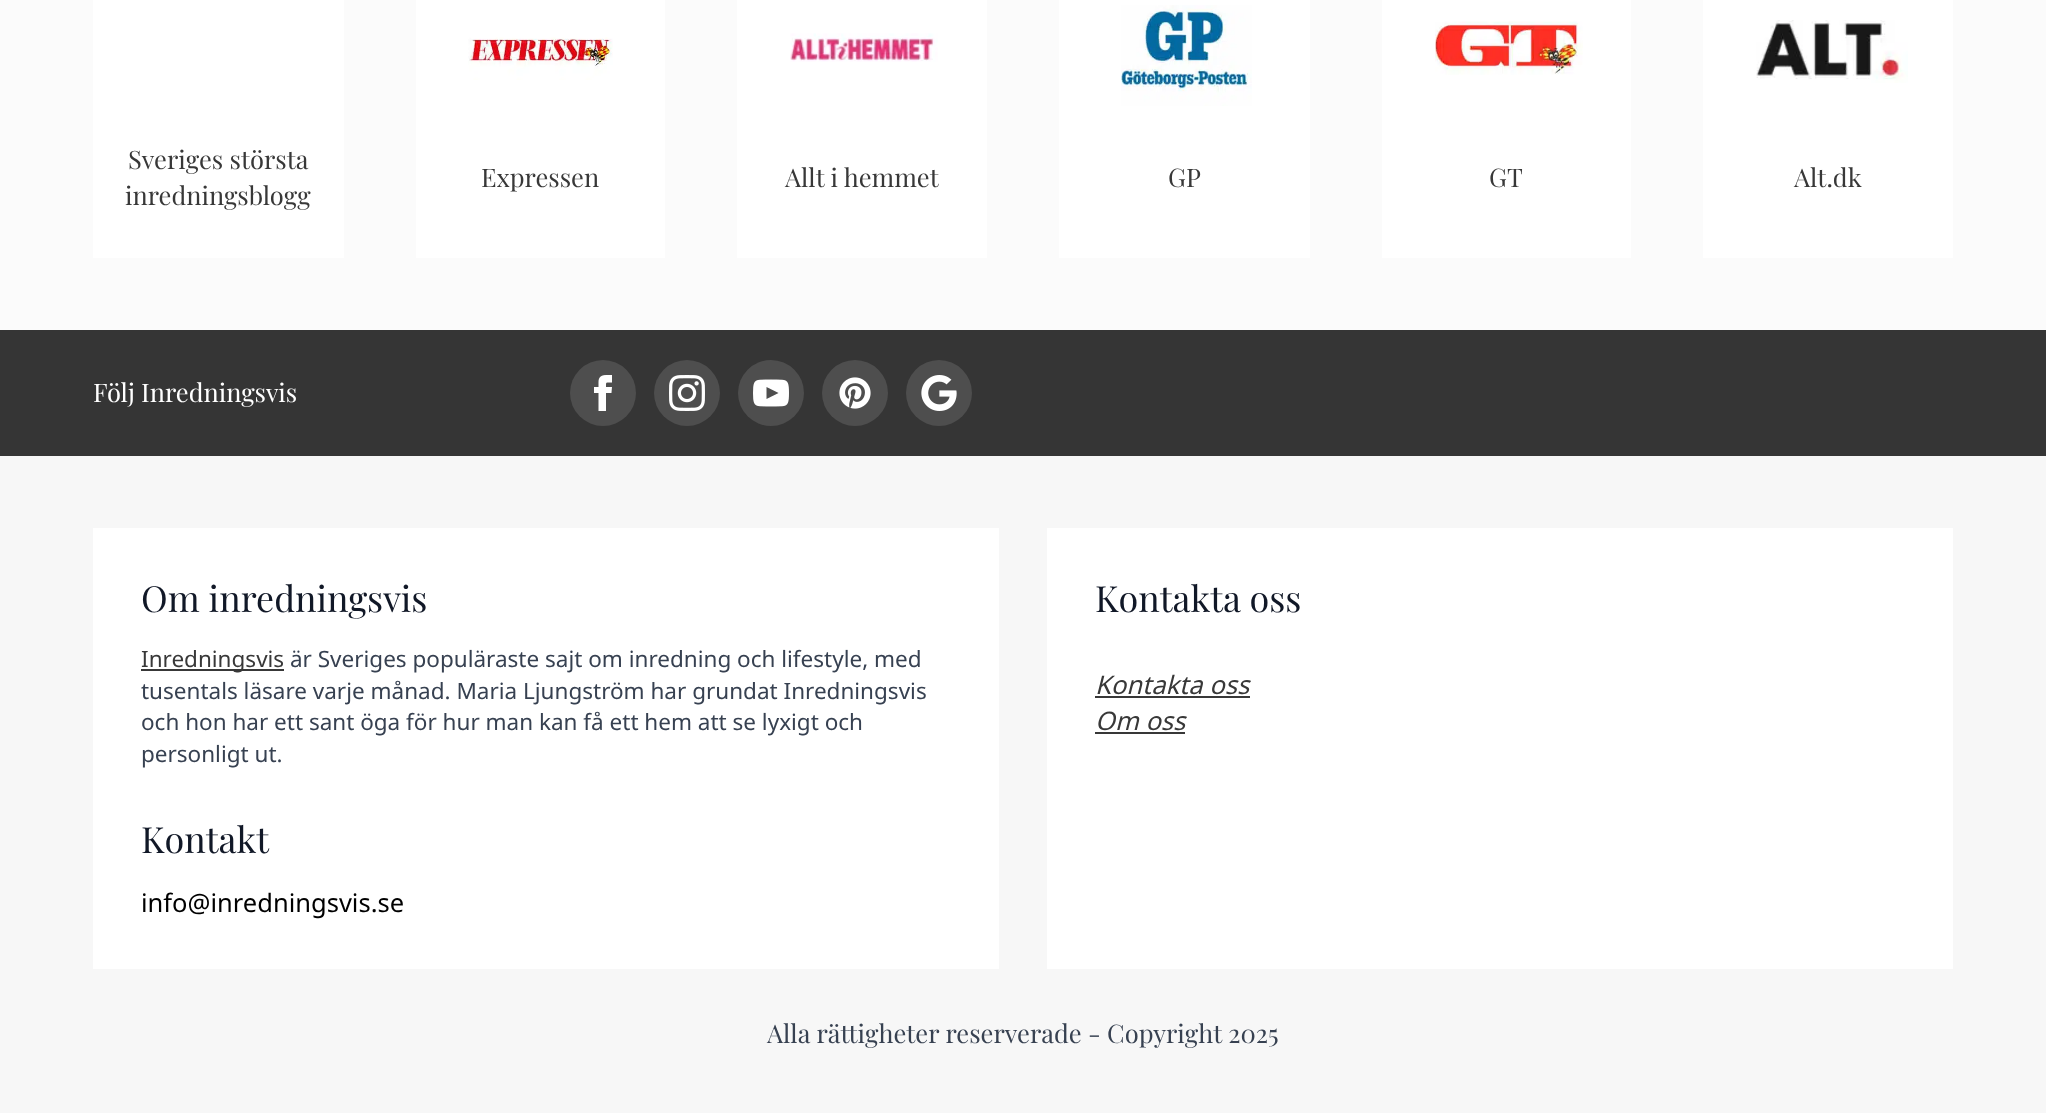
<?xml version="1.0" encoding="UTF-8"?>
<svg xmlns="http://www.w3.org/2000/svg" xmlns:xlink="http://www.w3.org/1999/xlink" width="2046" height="1113">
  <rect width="100%" height="100%" fill="#fbfbfb" />
  <rect x="93" width="251" height="258" fill="#ffffff" />
  <rect x="416" width="249" height="258" fill="#ffffff" />
  <image x="468" y="37" width="145" height="43" xlink:href="image1.png" />
  <rect x="737" width="250" height="258" fill="#ffffff" />
  <image x="790" y="33" width="148" height="29" xlink:href="image2.png" />
  <rect x="1059" width="251" height="258" fill="#ffffff" />
  <image x="1121" y="5" width="131" height="101" xlink:href="image3.png" />
  <rect x="1382" width="249" height="258" fill="#ffffff" />
  <image x="1435" y="21" width="148" height="54" xlink:href="image4.png" />
  <rect x="1703" width="250" height="258" fill="#ffffff" />
  <image x="1756" y="20" width="152" height="63" xlink:href="image5.png" />
  <rect y="330" width="2046" height="126" fill="#353535" />
  <circle cx="603" cy="393" r="33" fill="#4e4e4e" />
  <image x="594" y="375" width="18" height="36" xlink:href="image6.png" />
  <circle cx="687" cy="393" r="33" fill="#4e4e4e" />
  <image x="669" y="375" width="36" height="36" xlink:href="image7.png" />
  <circle cx="771" cy="393" r="33" fill="#4e4e4e" />
  <image x="753" y="379" width="36" height="28" xlink:href="image8.png" />
  <circle cx="855" cy="393" r="33" fill="#4e4e4e" />
  <image x="839" y="377" width="32" height="32" xlink:href="image9.png" />
  <circle cx="939" cy="393" r="33" fill="#4e4e4e" />
  <image x="921" y="375" width="36" height="36" xlink:href="image10.png" />
  <rect y="456" width="2046" height="657" fill="#f7f7f7" />
  <rect x="93" y="528" width="906" height="441" fill="#ffffff" />
  <rect x="141" y="669" width="143" height="2" fill="#383838" />
  <rect x="1047" y="528" width="906" height="441" fill="#ffffff" />
  <rect x="1095" y="696" width="155" height="2" fill="#383838" />
  <rect x="1095" y="732" width="90" height="2" fill="#383838" />
  <text x="128" y="169" style="font-family: Playfair Display; font-size: 25.5px; fill: #383838">Sveriges största</text>
  <text x="125" y="205" style="font-family: Playfair Display; font-size: 25.5px; fill: #383838">inredningsblogg</text>
  <text x="481" y="187" style="font-family: Playfair Display; font-size: 25.5px; fill: #383838">Expressen</text>
  <text x="785" y="187" style="font-family: Playfair Display; font-size: 25.5px; fill: #383838">Allt i hemmet</text>
  <text x="1168" y="187" style="font-family: Playfair Display; font-size: 25.5px; fill: #383838">GP</text>
  <text x="1489" y="187" style="font-family: Playfair Display; font-size: 25.5px; fill: #383838">GT</text>
  <text x="1794" y="187" style="font-family: Playfair Display; font-size: 25.5px; fill: #383838">Alt.dk</text>
  <text x="93" y="402" style="font-family: Playfair Display; font-size: 25.5px; fill: #ffffff">Följ Inredningsvis</text>
  <text x="141" y="612" style="font-family: Playfair Display; font-size: 36px; fill: #111827">Om inredningsvis</text>
  <text x="141" y="667" style="font-family: Noto Sans; font-size: 22.5px; fill: #383838">Inredningsvis</text>
  <text x="290" y="667" style="font-family: Noto Sans; font-size: 22.5px; fill: #374151">är Sveriges populäraste sajt om inredning och lifestyle, med</text>
  <text x="141" y="699" style="font-family: Noto Sans; font-size: 22.5px; fill: #374151">tusentals läsare varje månad. Maria Ljungström har grundat Inredningsvis</text>
  <text x="141" y="730" style="font-family: Noto Sans; font-size: 22.5px; fill: #374151">och hon har ett sant öga för hur man kan få ett hem att se lyxigt och</text>
  <text x="141" y="762" style="font-family: Noto Sans; font-size: 22.5px; fill: #374151">personligt ut.</text>
  <text x="141" y="853" style="font-family: Playfair Display; font-size: 36px; fill: #111827">Kontakt</text>
  <text x="141" y="912" style="font-family: Noto Sans; font-size: 25.5px; fill: #000000">info@inredningsvis.se</text>
  <text x="1095" y="612" style="font-family: Playfair Display; font-size: 36px; fill: #111827">Kontakta oss</text>
  <text x="1095" y="694" style="font-family: Noto Sans; font-size: 25.5px; font-style: italic; fill: #383838">Kontakta oss</text>
  <text x="1095" y="730" style="font-family: Noto Sans; font-size: 25.5px; font-style: italic; fill: #383838">Om oss</text>
  <text x="767" y="1043" style="font-family: Playfair Display; font-size: 25.5px; fill: #374151">Alla rättigheter reserverade - Copyright 2025</text>
</svg>
